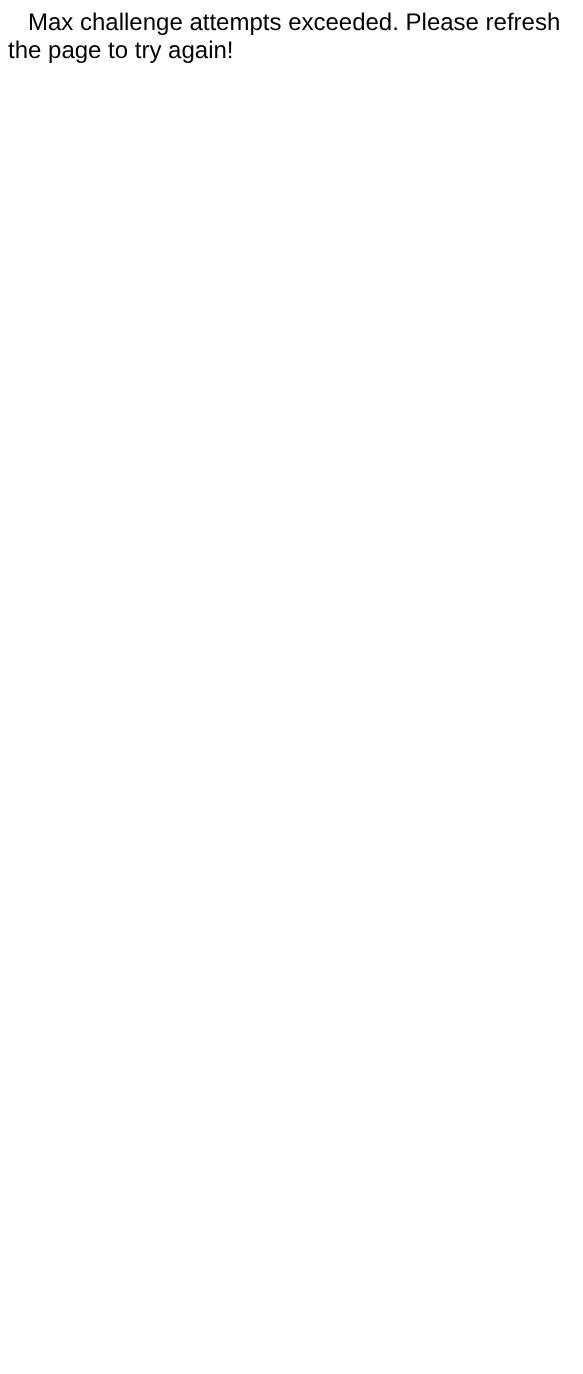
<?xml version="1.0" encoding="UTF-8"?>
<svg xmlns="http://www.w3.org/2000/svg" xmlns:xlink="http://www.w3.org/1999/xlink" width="583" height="1374">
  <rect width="100%" height="100%" fill="#ffffff" />
  <text x="28" y="30" style="font-family: Liberation Sans; font-size: 24px; fill: #000000">Max challenge attempts exceeded. Please refresh</text>
  <text x="8" y="58" style="font-family: Liberation Sans; font-size: 24px; fill: #000000">the page to try again!</text>
</svg>
